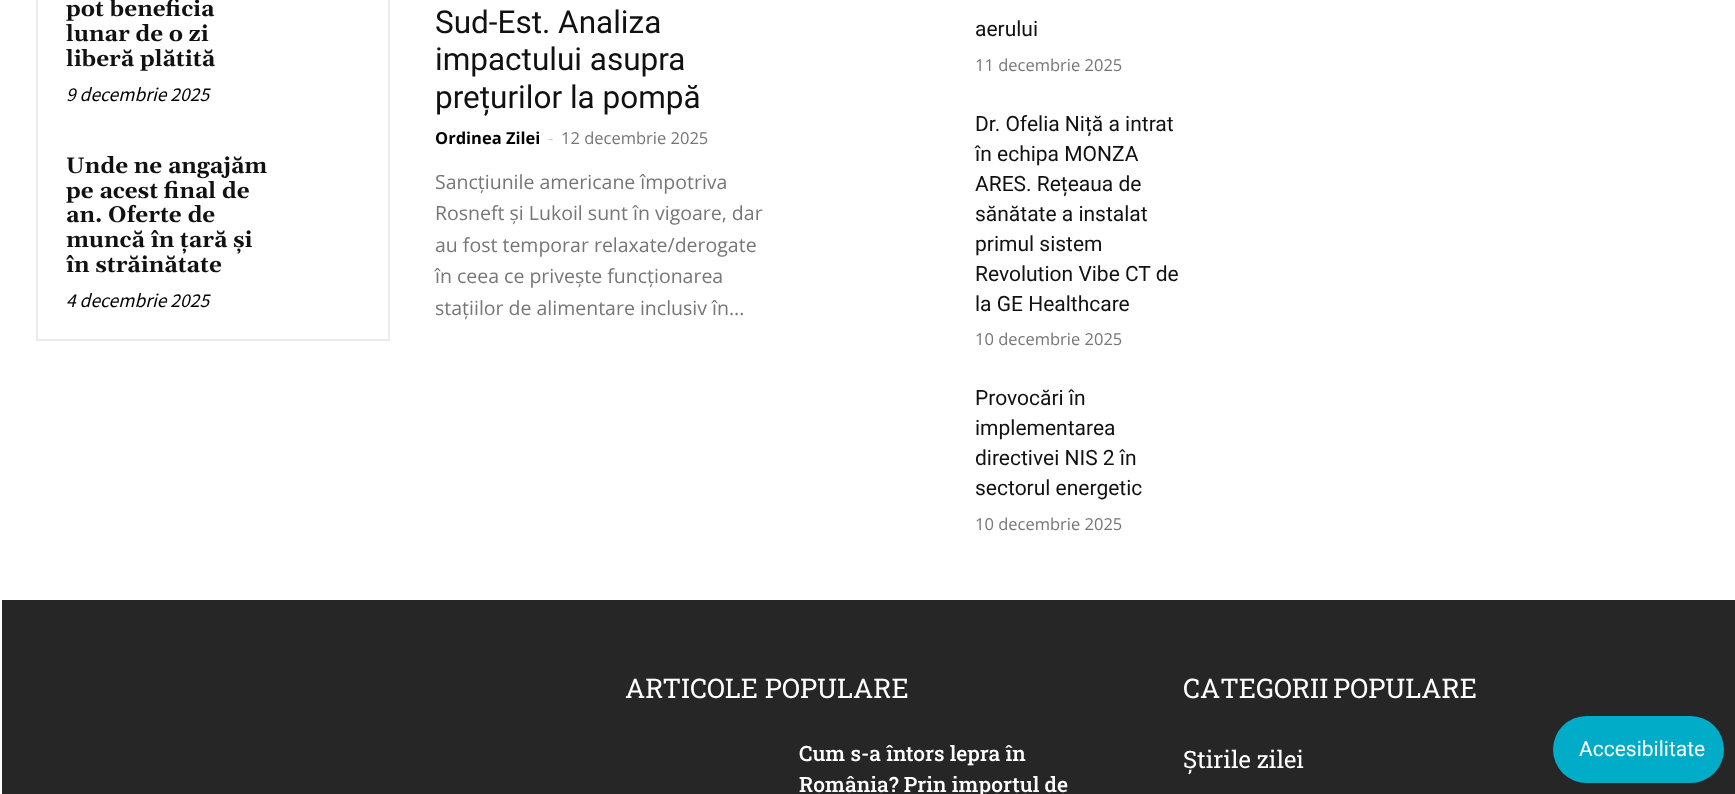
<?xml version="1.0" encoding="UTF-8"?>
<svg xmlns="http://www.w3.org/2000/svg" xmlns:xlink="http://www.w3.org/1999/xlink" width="1735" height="794">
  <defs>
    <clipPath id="clip1"><rect x="1184" y="666" width="486" height="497" /></clipPath>
  </defs>
  <rect width="100%" height="100%" fill="#ffffff" />
  <rect x="37" y="-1" width="352" height="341" fill="none" stroke="#eaeaea" stroke-width="2" />
  <rect x="2" y="600" width="1733" height="194" fill="#262626" />
  <rect x="1553" y="716" width="171" height="67" rx="33.5" fill="#00acc7" />
  <text x="66" y="16" style="font-family: Gelasio; font-size: 22.5px; font-weight: bold; fill: #111111">pot beneficia</text>
  <text x="66" y="41" style="font-family: Gelasio; font-size: 22.5px; font-weight: bold; fill: #111111">lunar de o zi</text>
  <text x="66" y="66" style="font-family: Gelasio; font-size: 22.5px; font-weight: bold; fill: #111111">liberă plătită</text>
  <text x="66" y="101" style="font-family: Source Sans Pro; font-size: 19.5px; font-style: italic; fill: #000000">9 decembrie 2025</text>
  <text x="66" y="173" style="font-family: Gelasio; font-size: 22.5px; font-weight: bold; fill: #111111">Unde ne angajăm</text>
  <text x="66" y="198" style="font-family: Gelasio; font-size: 22.5px; font-weight: bold; fill: #111111">pe acest final de</text>
  <text x="66" y="222" style="font-family: Gelasio; font-size: 22.5px; font-weight: bold; fill: #111111">an. Oferte de</text>
  <text x="66" y="247" style="font-family: Gelasio; font-size: 22.5px; font-weight: bold; fill: #111111">muncă în țară și</text>
  <text x="66" y="272" style="font-family: Gelasio; font-size: 22.5px; font-weight: bold; fill: #111111">în străinătate</text>
  <text x="66" y="307" style="font-family: Source Sans Pro; font-size: 19.5px; font-style: italic; fill: #000000">4 decembrie 2025</text>
  <text x="435" y="33" style="font-family: Roboto; font-size: 31.5px; fill: #111111">Sud-Est. Analiza</text>
  <text x="435" y="70" style="font-family: Roboto; font-size: 31.5px; fill: #111111">impactului asupra</text>
  <text x="435" y="108" style="font-family: Roboto; font-size: 31.5px; fill: #111111">prețurilor la pompă</text>
  <text x="435" y="144" style="font-family: Open Sans; font-size: 16.5px; font-weight: bold; fill: #000000">Ordinea Zilei</text>
  <text x="548" y="144" style="font-family: Open Sans; font-size: 16.5px; fill: #cccccc">-</text>
  <text x="561" y="144" style="font-family: Open Sans; font-size: 16.5px; fill: #767676">12 decembrie 2025</text>
  <text x="435" y="189" style="font-family: Open Sans; font-size: 19.5px; fill: #767676">Sancțiunile americane împotriva</text>
  <text x="435" y="220" style="font-family: Open Sans; font-size: 19.5px; fill: #767676">Rosneft și Lukoil sunt în vigoare, dar</text>
  <text x="435" y="252" style="font-family: Open Sans; font-size: 19.5px; fill: #767676">au fost temporar relaxate/derogate</text>
  <text x="435" y="283" style="font-family: Open Sans; font-size: 19.5px; fill: #767676">în ceea ce privește funcționarea</text>
  <text x="435" y="315" style="font-family: Open Sans; font-size: 19.5px; fill: #767676">stațiilor de alimentare inclusiv în...</text>
  <text x="975" y="36" style="font-family: Roboto; font-size: 21px; fill: #111111">aerului</text>
  <text x="975" y="71" style="font-family: Open Sans; font-size: 16.5px; fill: #767676">11 decembrie 2025</text>
  <text x="975" y="131" style="font-family: Roboto; font-size: 21px; fill: #111111">Dr. Ofelia Niță a intrat</text>
  <text x="975" y="161" style="font-family: Roboto; font-size: 21px; fill: #111111">în echipa MONZA</text>
  <text x="975" y="191" style="font-family: Roboto; font-size: 21px; fill: #111111">ARES. Rețeaua de</text>
  <text x="975" y="221" style="font-family: Roboto; font-size: 21px; fill: #111111">sănătate a instalat</text>
  <text x="975" y="251" style="font-family: Roboto; font-size: 21px; fill: #111111">primul sistem</text>
  <text x="975" y="281" style="font-family: Roboto; font-size: 21px; fill: #111111">Revolution Vibe CT de</text>
  <text x="975" y="311" style="font-family: Roboto; font-size: 21px; fill: #111111">la GE Healthcare</text>
  <text x="975" y="345" style="font-family: Open Sans; font-size: 16.5px; fill: #767676">10 decembrie 2025</text>
  <text x="975" y="405" style="font-family: Roboto; font-size: 21px; fill: #111111">Provocări în</text>
  <text x="975" y="435" style="font-family: Roboto; font-size: 21px; fill: #111111">implementarea</text>
  <text x="975" y="465" style="font-family: Roboto; font-size: 21px; fill: #111111">directivei NIS 2 în</text>
  <text x="975" y="495" style="font-family: Roboto; font-size: 21px; fill: #111111">sectorul energetic</text>
  <text x="975" y="530" style="font-family: Open Sans; font-size: 16.5px; fill: #767676">10 decembrie 2025</text>
  <text x="625" y="698" style="font-family: Roboto Slab; font-size: 27px; fill: #ffffff">ARTICOLE POPULARE</text>
  <text x="799" y="761" style="font-family: Roboto Slab; font-size: 21px; font-weight: 500; fill: #ffffff">Cum s-a întors lepra în</text>
  <text x="799" y="792" style="font-family: Roboto Slab; font-size: 21px; font-weight: 500; fill: #ffffff">România? Prin importul de</text>
  <g clip-path="url(#clip1)">
    <text x="1183" y="698" word-spacing="-2" style="font-family: Roboto Slab; font-size: 27px; fill: #ffffff">CATEGORII POPULARE</text>
  </g>
  <text x="1183" y="768" style="font-family: Roboto Slab; font-size: 24px; fill: #ffffff">Știrile zilei</text>
  <text x="1579" y="756" style="font-family: Roboto; font-size: 21px; fill: #ffffff">Accesibilitate</text>
</svg>
